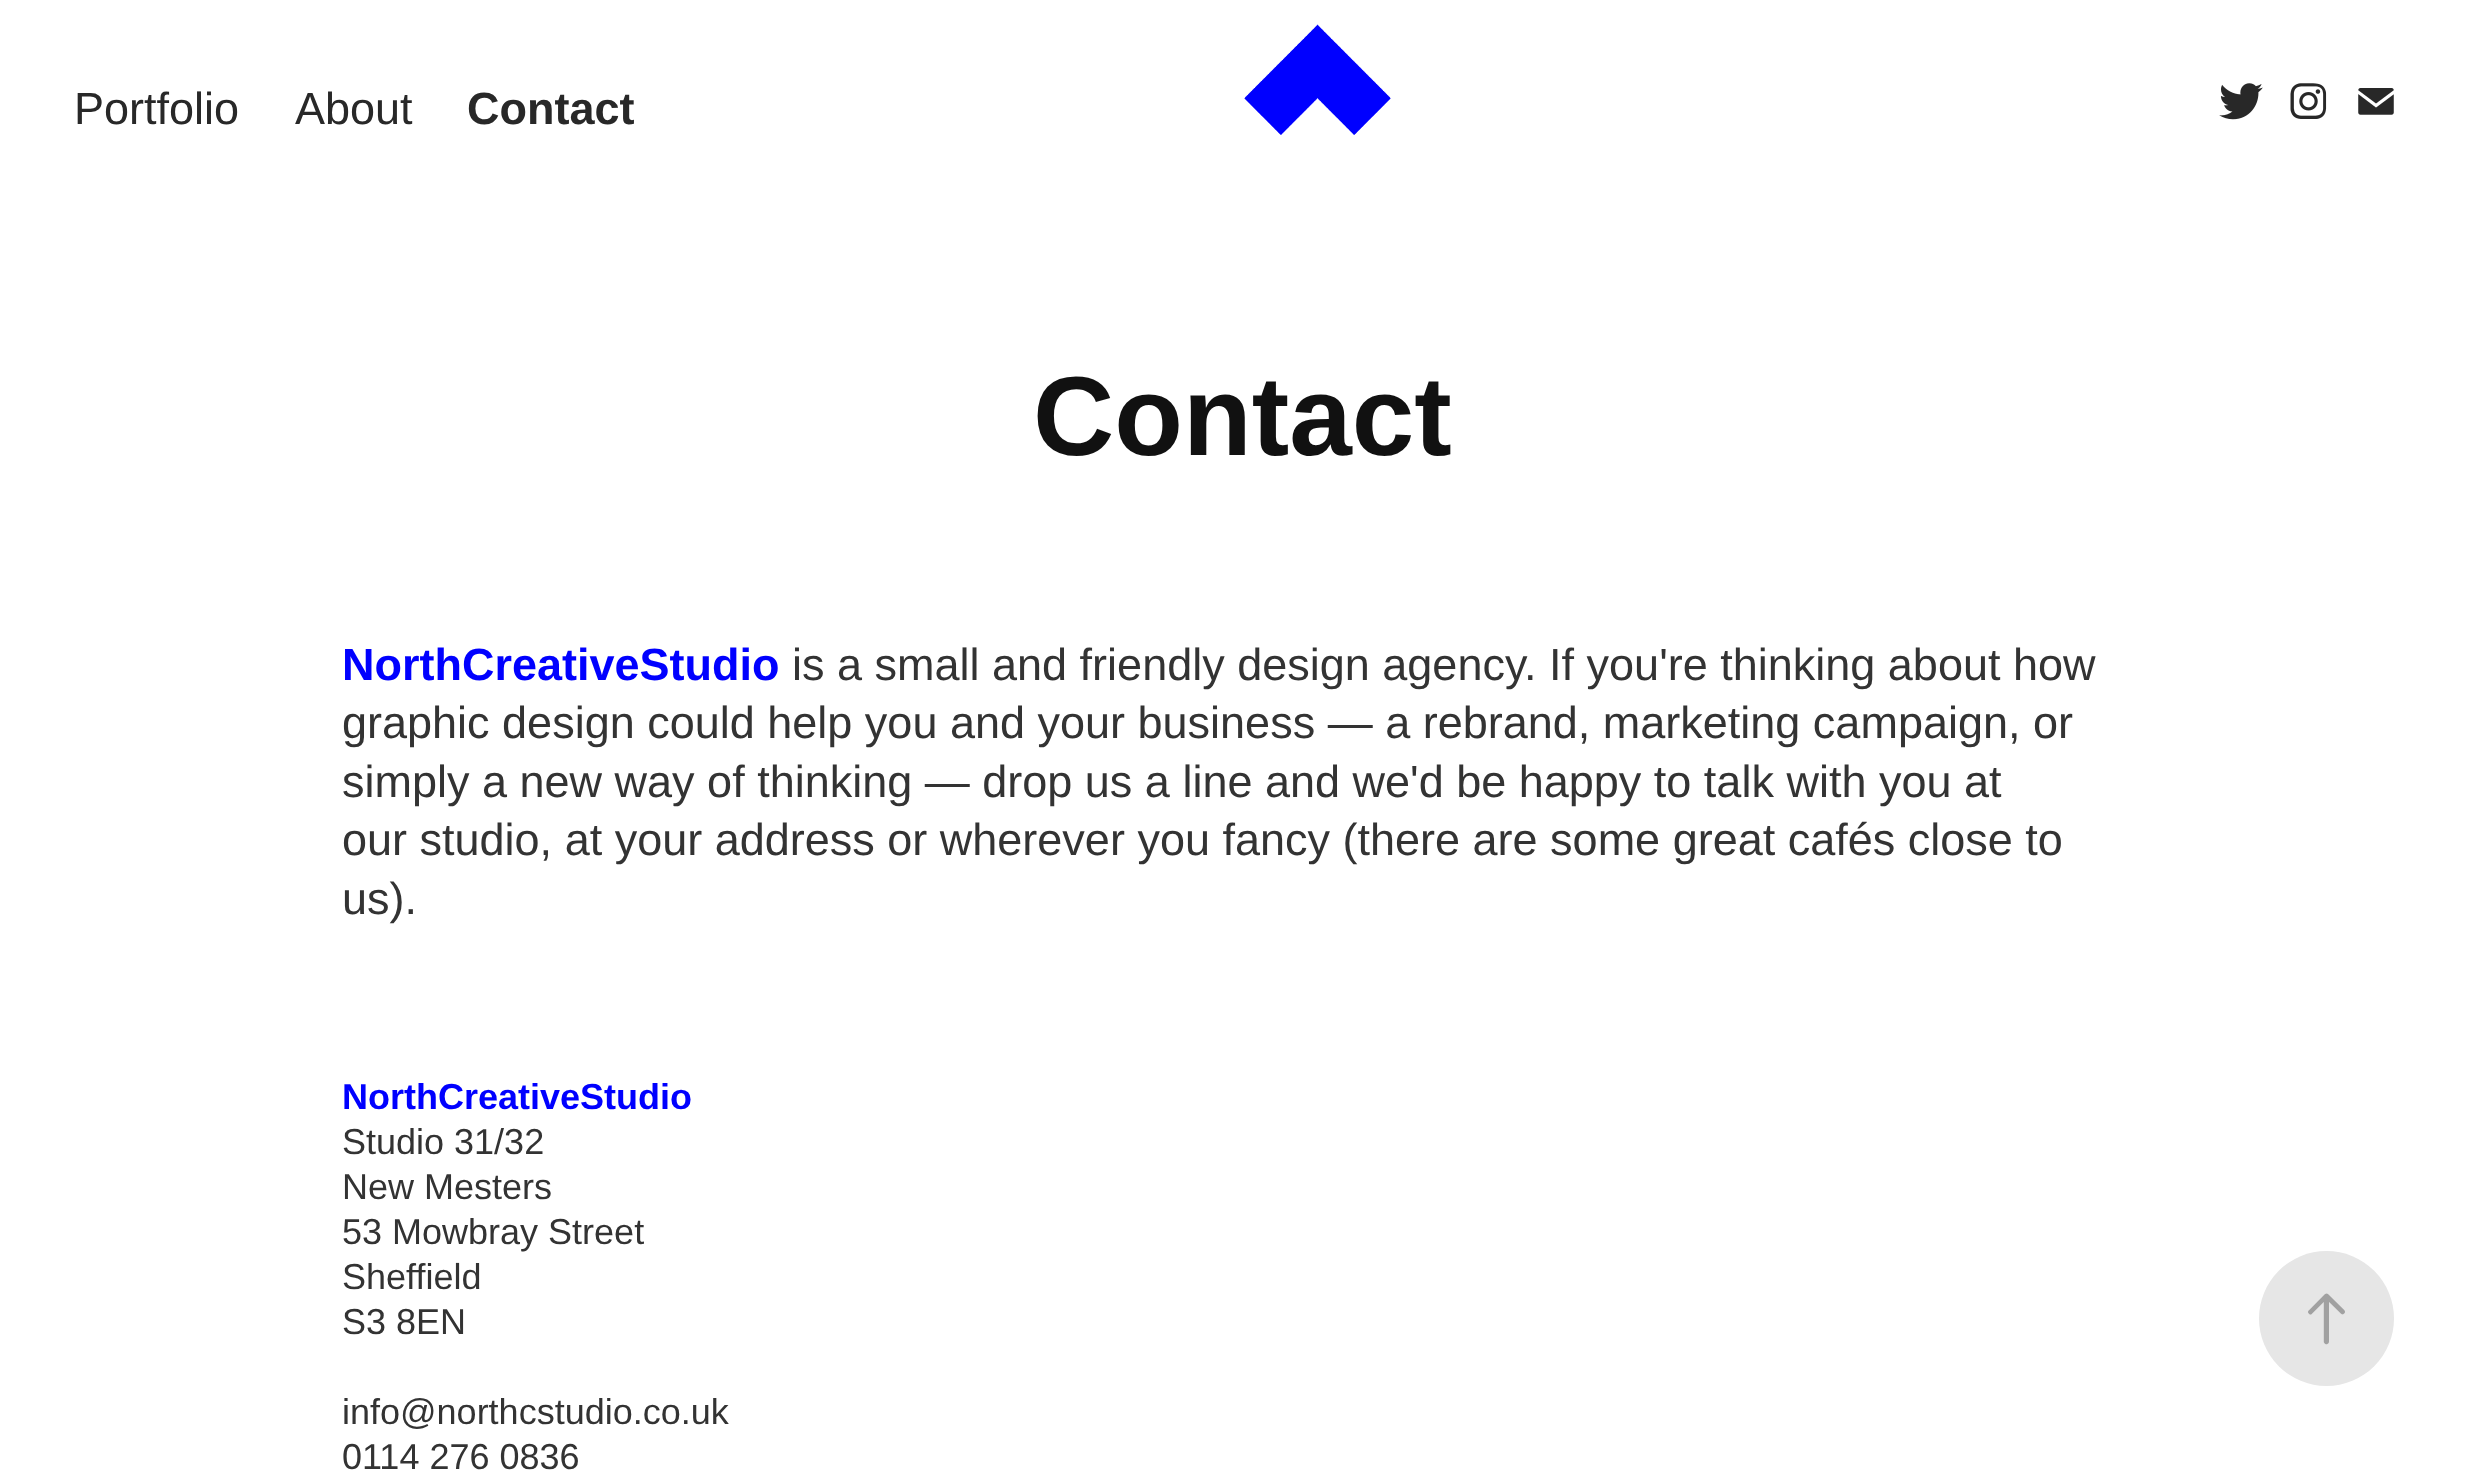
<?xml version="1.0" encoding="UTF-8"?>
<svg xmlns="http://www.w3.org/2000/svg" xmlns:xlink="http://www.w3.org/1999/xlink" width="2482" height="1474">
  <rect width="100%" height="100%" fill="#ffffff" />
  <image x="1244" y="24" width="147" height="111" xlink:href="image1.png" />
  <image x="2219" y="83" width="44" height="37" xlink:href="image2.png" />
  <image x="2290" y="83" width="37" height="36" xlink:href="image3.png" />
  <image x="2358" y="88" width="36" height="27" xlink:href="image4.png" />
  <circle cx="2326.5" cy="1318.5" r="67.5" fill="#e6e6e6" />
  <image x="2308" y="1293" width="37" height="52" xlink:href="image5.png" />
  <text x="74" y="124" style="font-family: Liberation Sans; font-size: 45px; fill: #282828">Portfolio</text>
  <text x="295" y="124" style="font-family: Liberation Sans; font-size: 45px; fill: #282828">About</text>
  <text x="467" y="124" style="font-family: Liberation Sans; font-size: 45px; font-weight: bold; fill: #282828">Contact</text>
  <text x="1033" y="455" style="font-family: Liberation Sans; font-size: 112.5px; font-weight: bold; fill: #111111">Contact</text>
  <text x="342" y="680" style="font-family: Liberation Sans; font-size: 45px; font-weight: bold; fill: #0000ff">NorthCreativeStudio</text>
  <text x="792" y="680" style="font-family: Liberation Sans; font-size: 45px; fill: #333333">is a small and friendly design agency. If you're thinking about how</text>
  <text x="342" y="738" style="font-family: Liberation Sans; font-size: 45px; fill: #333333">graphic design could help you and your business — a rebrand, marketing campaign, or</text>
  <text x="342" y="797" style="font-family: Liberation Sans; font-size: 45px; fill: #333333">simply a new way of thinking — drop us a line and we'd be happy to talk with you at</text>
  <text x="342" y="855" style="font-family: Liberation Sans; font-size: 45px; fill: #333333">our studio, at your address or wherever you fancy (there are some great cafés close to</text>
  <text x="342" y="914" style="font-family: Liberation Sans; font-size: 45px; fill: #333333">us).</text>
  <text x="342" y="1109" style="font-family: Liberation Sans; font-size: 36px; font-weight: bold; fill: #0000ff">NorthCreativeStudio</text>
  <text x="342" y="1154" style="font-family: Liberation Sans; font-size: 36px; fill: #333333">Studio 31/32</text>
  <text x="342" y="1199" style="font-family: Liberation Sans; font-size: 36px; fill: #333333">New Mesters</text>
  <text x="342" y="1244" style="font-family: Liberation Sans; font-size: 36px; fill: #333333">53 Mowbray Street</text>
  <text x="342" y="1289" style="font-family: Liberation Sans; font-size: 36px; fill: #333333">Sheffield</text>
  <text x="342" y="1334" style="font-family: Liberation Sans; font-size: 36px; fill: #333333">S3 8EN</text>
  <text x="342" y="1424" style="font-family: Liberation Sans; font-size: 36px; fill: #333333">info@northcstudio.co.uk</text>
  <text x="342" y="1469" style="font-family: Liberation Sans; font-size: 36px; fill: #333333">0114 276 0836</text>
</svg>
